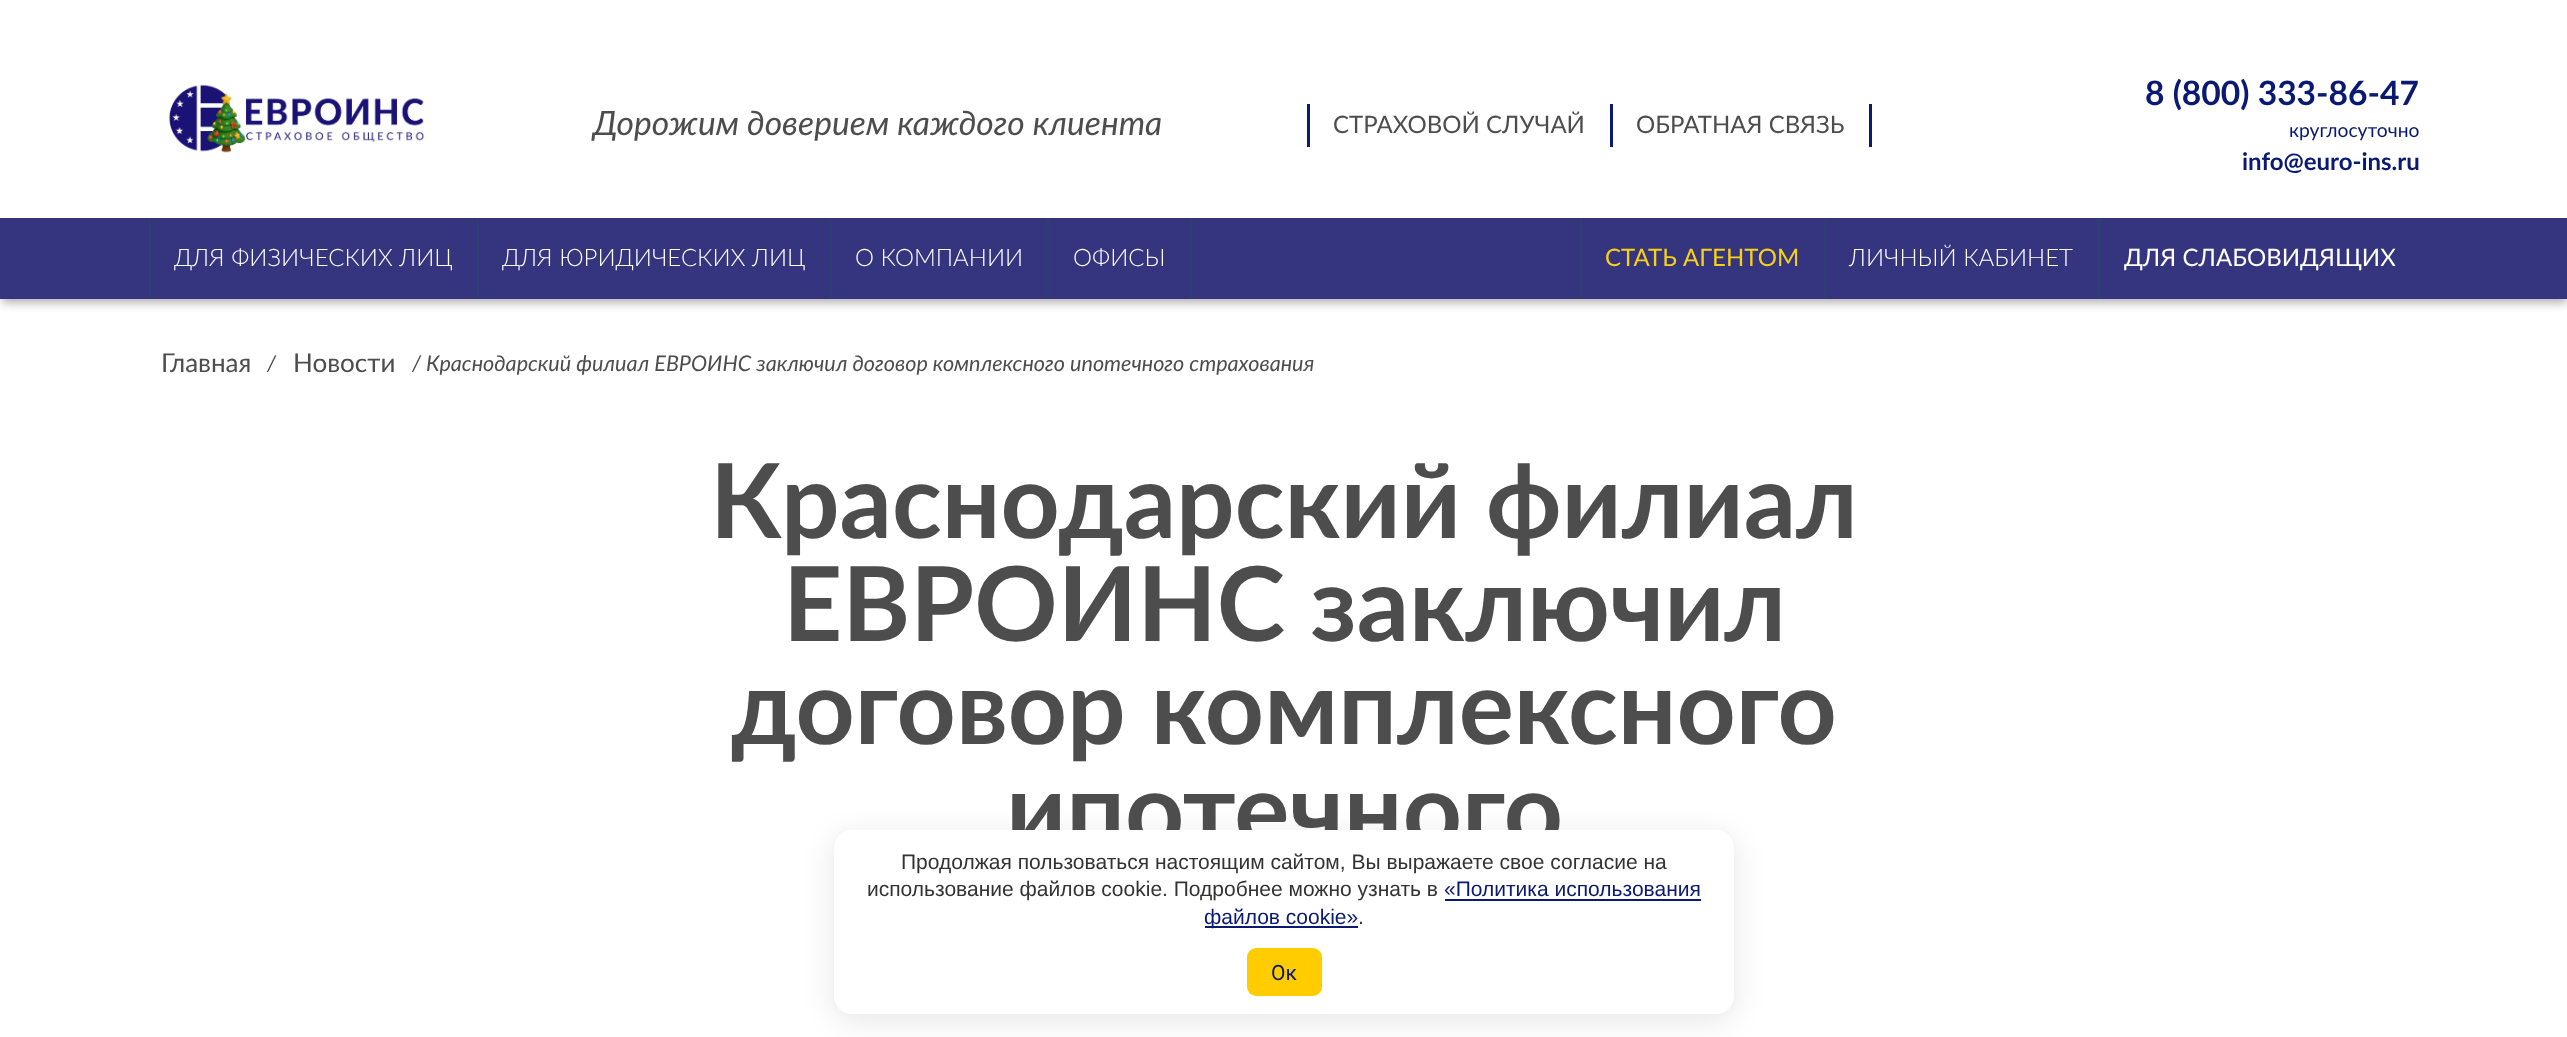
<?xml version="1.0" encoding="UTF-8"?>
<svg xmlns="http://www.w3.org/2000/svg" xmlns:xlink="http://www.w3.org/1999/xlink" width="2567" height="1037">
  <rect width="100%" height="100%" fill="#ffffff" />
  <rect x="2" y="225" width="2565" height="78" fill="#000000" fill-opacity="0.3" filter="blur(5px)" />
  <rect x="2" y="216" width="2565" height="2" fill="#ffffff" />
  <image x="169" y="84" width="256" height="69" xlink:href="image1.png" />
  <rect x="1307" y="104" width="3" height="43" fill="#0a1971" />
  <rect x="1869" y="104" width="3" height="43" fill="#0a1971" />
  <rect x="1610" y="104" width="3" height="43" fill="#0a1971" />
  <rect y="218" width="2567" height="81" fill="#35347e" />
  <rect x="149" y="218" width="2" height="81" fill="#2f3d75" />
  <rect x="477" y="218" width="2" height="81" fill="#2f3d75" />
  <rect x="830" y="218" width="2" height="81" fill="#2f3d75" />
  <rect x="1190" y="218" width="2" height="81" fill="#2f3d75" />
  <rect x="1047" y="218" width="2" height="81" fill="#2f3d75" />
  <rect x="1580" y="218" width="2" height="81" fill="#2f3d75" />
  <rect x="1824" y="218" width="2" height="81" fill="#2f3d75" />
  <rect x="2097" y="218" width="4" height="81" fill="#2f3d75" />
  <rect x="834" y="836" width="900" height="184" rx="18" fill="#000000" fill-opacity="0.1" filter="blur(15px)" />
  <text x="593" y="135" style="font-family: Lato; font-size: 33.6px; font-style: italic; fill: #4d4d4d">Дорожим доверием каждого клиента</text>
  <text x="1333" y="133" style="font-family: Lato; font-size: 24px; fill: #4d4d4d">СТРАХОВОЙ СЛУЧАЙ</text>
  <text x="1636" y="133" style="font-family: Lato; font-size: 24px; fill: #4d4d4d">ОБРАТНАЯ СВЯЗЬ</text>
  <text x="2145" y="105" style="font-family: Lato; font-size: 33.6px; font-weight: bold; fill: #0a1971">8 (800) 333-86-47</text>
  <text x="2289" y="137" style="font-family: Lato; font-size: 19.25px; fill: #0a1971">круглосуточно</text>
  <text x="2242" y="170" style="font-family: Lato; font-size: 24px; font-weight: bold; fill: #0a1971">info@euro-ins.ru</text>
  <text x="174" y="266" style="font-family: Lato; font-size: 24px; font-weight: 300; fill: #ffffff">ДЛЯ ФИЗИЧЕСКИХ ЛИЦ</text>
  <text x="502" y="266" style="font-family: Lato; font-size: 24px; font-weight: 300; fill: #ffffff">ДЛЯ ЮРИДИЧЕСКИХ ЛИЦ</text>
  <text x="855" y="266" style="font-family: Lato; font-size: 24px; font-weight: 300; fill: #ffffff">О КОМПАНИИ</text>
  <text x="1073" y="266" style="font-family: Lato; font-size: 24px; font-weight: 300; fill: #ffffff">ОФИСЫ</text>
  <text x="1605" y="266" style="font-family: Lato; font-size: 24px; fill: #f7d117">СТАТЬ АГЕНТОМ</text>
  <text x="1849" y="266" style="font-family: Lato; font-size: 24px; font-weight: 300; fill: #ffffff">ЛИЧНЫЙ КАБИНЕТ</text>
  <text x="2124" y="266" style="font-family: Lato; font-size: 24px; fill: #ffffff">ДЛЯ СЛАБОВИДЯЩИХ</text>
  <text x="161" y="372" style="font-family: Lato; font-size: 26px; fill: #4d4d4d">Главная</text>
  <text x="267" y="371" style="font-family: Lato; font-size: 21.6px; font-style: italic; fill: #4d4d4d">/</text>
  <text x="293" y="372" style="font-family: Lato; font-size: 26px; fill: #4d4d4d">Новости</text>
  <text x="412" y="371" style="font-family: Lato; font-size: 21.6px; font-style: italic; fill: #4d4d4d">/ Краснодарский филиал ЕВРОИНС заключил договор комплексного ипотечного страхования</text>
  <text x="710" y="538" style="font-family: Lato; font-size: 103.25px; font-weight: bold; fill: #4d4d4d">Краснодарский филиал</text>
  <text x="783" y="641" style="font-family: Lato; font-size: 103.25px; font-weight: bold; fill: #4d4d4d">ЕВРОИНС заключил</text>
  <text x="731" y="744" style="font-family: Lato; font-size: 103.25px; font-weight: bold; fill: #4d4d4d">договор комплексного</text>
  <text x="1006" y="847" style="font-family: Lato; font-size: 103.25px; font-weight: bold; fill: #4d4d4d">ипотечного</text>
  <rect x="834" y="830" width="900" height="184" rx="18" fill="#ffffff" />
  <text x="901" y="869" style="font-family: Liberation Sans; font-size: 21px; fill: #333333">Продолжая пользоваться настоящим сайтом, Вы выражаете свое согласие на</text>
  <text x="867" y="896" style="font-family: Liberation Sans; font-size: 21px; fill: #333333">использование файлов cookie. Подробнее можно узнать в</text>
  <text x="1444" y="896" style="font-family: Liberation Sans; font-size: 21px; fill: #0a1971">«Политика использования</text>
  <rect x="1445" y="899" width="256" height="2" fill="#0a1971" />
  <rect x="1205" y="926" width="153" height="2" fill="#0a1971" />
  <text x="1204" y="924" style="font-family: Liberation Sans; font-size: 21px; fill: #0a1971">файлов cookie»</text>
  <text x="1358" y="924" style="font-family: Liberation Sans; font-size: 21px; fill: #333333">.</text>
  <rect x="1247" y="948" width="75" height="48" rx="9" fill="#ffcc00" />
  <text x="1271" y="980" style="font-family: Roboto; font-size: 21px; fill: #0a1971">Ок</text>
</svg>
